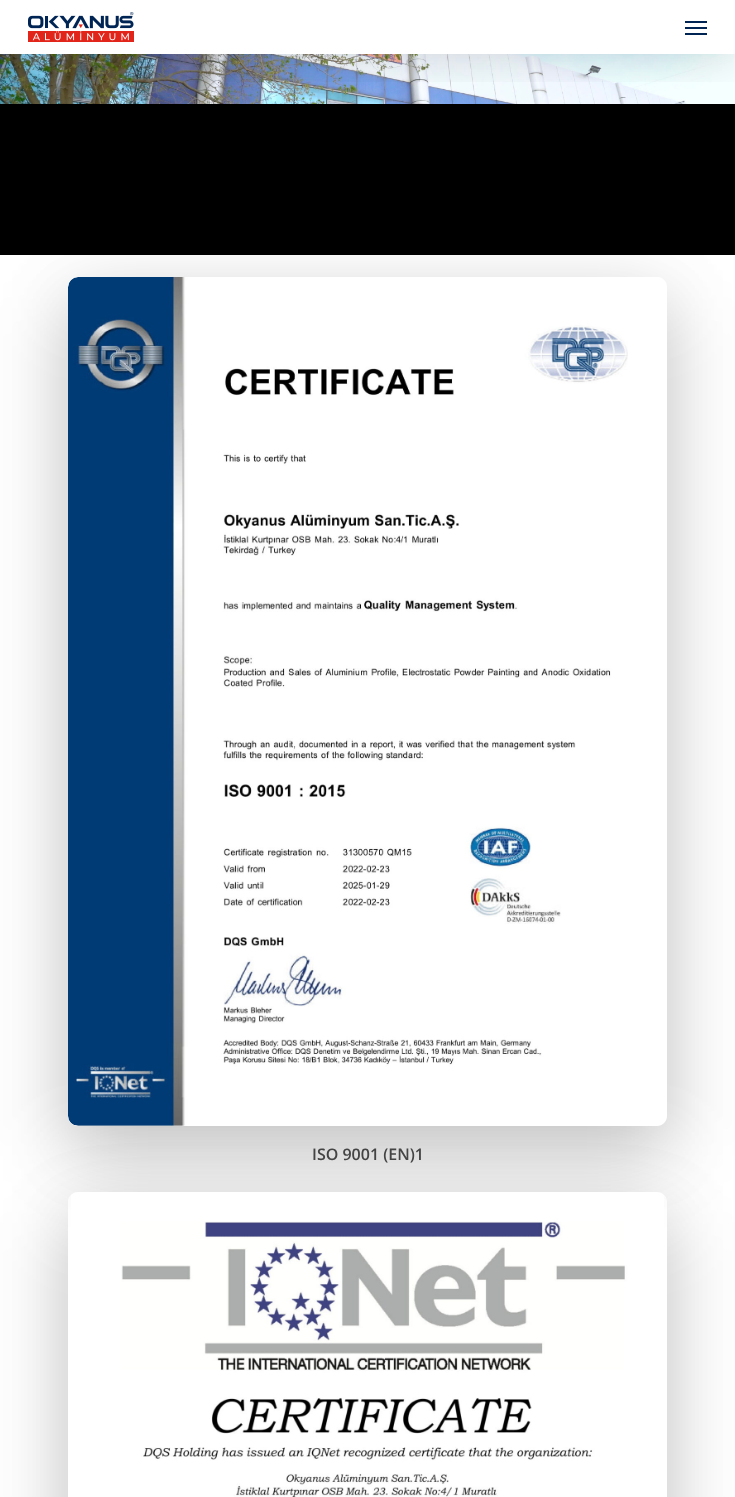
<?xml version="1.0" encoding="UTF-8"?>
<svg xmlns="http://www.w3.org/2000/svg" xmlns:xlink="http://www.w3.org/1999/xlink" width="735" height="1497">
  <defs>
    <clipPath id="clip1"><rect x="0" y="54" width="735" height="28" /></clipPath>
    <clipPath id="clip2"><path d="M 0 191 h 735 v 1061 h -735 z m 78 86 h 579 c 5.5 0 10 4.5 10 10 v 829 c 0 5.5 -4.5 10 -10 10 h -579 c -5.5 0 -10 -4.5 -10 -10 v -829 c 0 -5.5 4.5 -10 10 -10 z" clip-rule="evenodd" /></clipPath>
    <clipPath id="clip3"><path d="M 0 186 h 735 v 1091 h -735 z m 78 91 h 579 c 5.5 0 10 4.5 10 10 v 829 c 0 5.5 -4.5 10 -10 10 h -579 c -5.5 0 -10 -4.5 -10 -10 v -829 c 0 -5.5 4.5 -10 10 -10 z" clip-rule="evenodd" /></clipPath>
    <clipPath id="clip4"><path d="M 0 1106 h 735 v 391 h -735 z m 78 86 h 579 c 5.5 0 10 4.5 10 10 v 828 c 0 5.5 -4.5 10 -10 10 h -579 c -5.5 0 -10 -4.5 -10 -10 v -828 c 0 -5.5 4.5 -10 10 -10 z" clip-rule="evenodd" /></clipPath>
    <clipPath id="clip5"><path d="M 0 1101 h 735 v 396 h -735 z m 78 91 h 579 c 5.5 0 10 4.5 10 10 v 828 c 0 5.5 -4.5 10 -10 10 h -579 c -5.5 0 -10 -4.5 -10 -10 v -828 c 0 -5.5 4.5 -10 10 -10 z" clip-rule="evenodd" /></clipPath>
  </defs>
  <rect width="100%" height="100%" fill="#ffffff" />
  <rect y="104" width="735" height="151" fill="#000000" />
  <image x="0" y="54" width="735" height="50" xlink:href="image2.png" />
  <g clip-path="url(#clip1)">
    <rect y="3" width="735" height="54" fill="#000000" fill-opacity="0.15" filter="blur(22.5px)" />
  </g>
  <image x="28" y="12" width="106" height="30" xlink:href="image1.png" />
  <rect x="685" y="21" width="22" height="2" fill="#002554" />
  <rect x="685" y="33" width="22" height="2" fill="#002554" />
  <rect x="685" y="27" width="22" height="2" fill="#002554" />
  <g clip-path="url(#clip2)">
    <rect x="68" y="297" width="599" height="849" rx="10" fill="#000000" fill-opacity="0.12" filter="blur(35px)" />
  </g>
  <g clip-path="url(#clip3)">
    <rect x="68" y="307" width="599" height="849" rx="10" fill="#000000" fill-opacity="0.14" filter="blur(40px)" />
  </g>
  <image x="68" y="277" width="560" height="849" xlink:href="image4.png" />
  <g clip-path="url(#clip4)">
    <rect x="68" y="1212" width="599" height="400" rx="10" fill="#000000" fill-opacity="0.12" filter="blur(35px)" />
  </g>
  <g clip-path="url(#clip5)">
    <rect x="68" y="1222" width="599" height="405" rx="10" fill="#000000" fill-opacity="0.14" filter="blur(40px)" />
  </g>
  <image x="71" y="1192" width="593" height="305" xlink:href="image3.png" />
  <text x="312" y="1160" style="font-family: Open Sans; font-size: 16px; font-weight: 600; fill: #444444">ISO 9001 (EN)1</text>
</svg>
